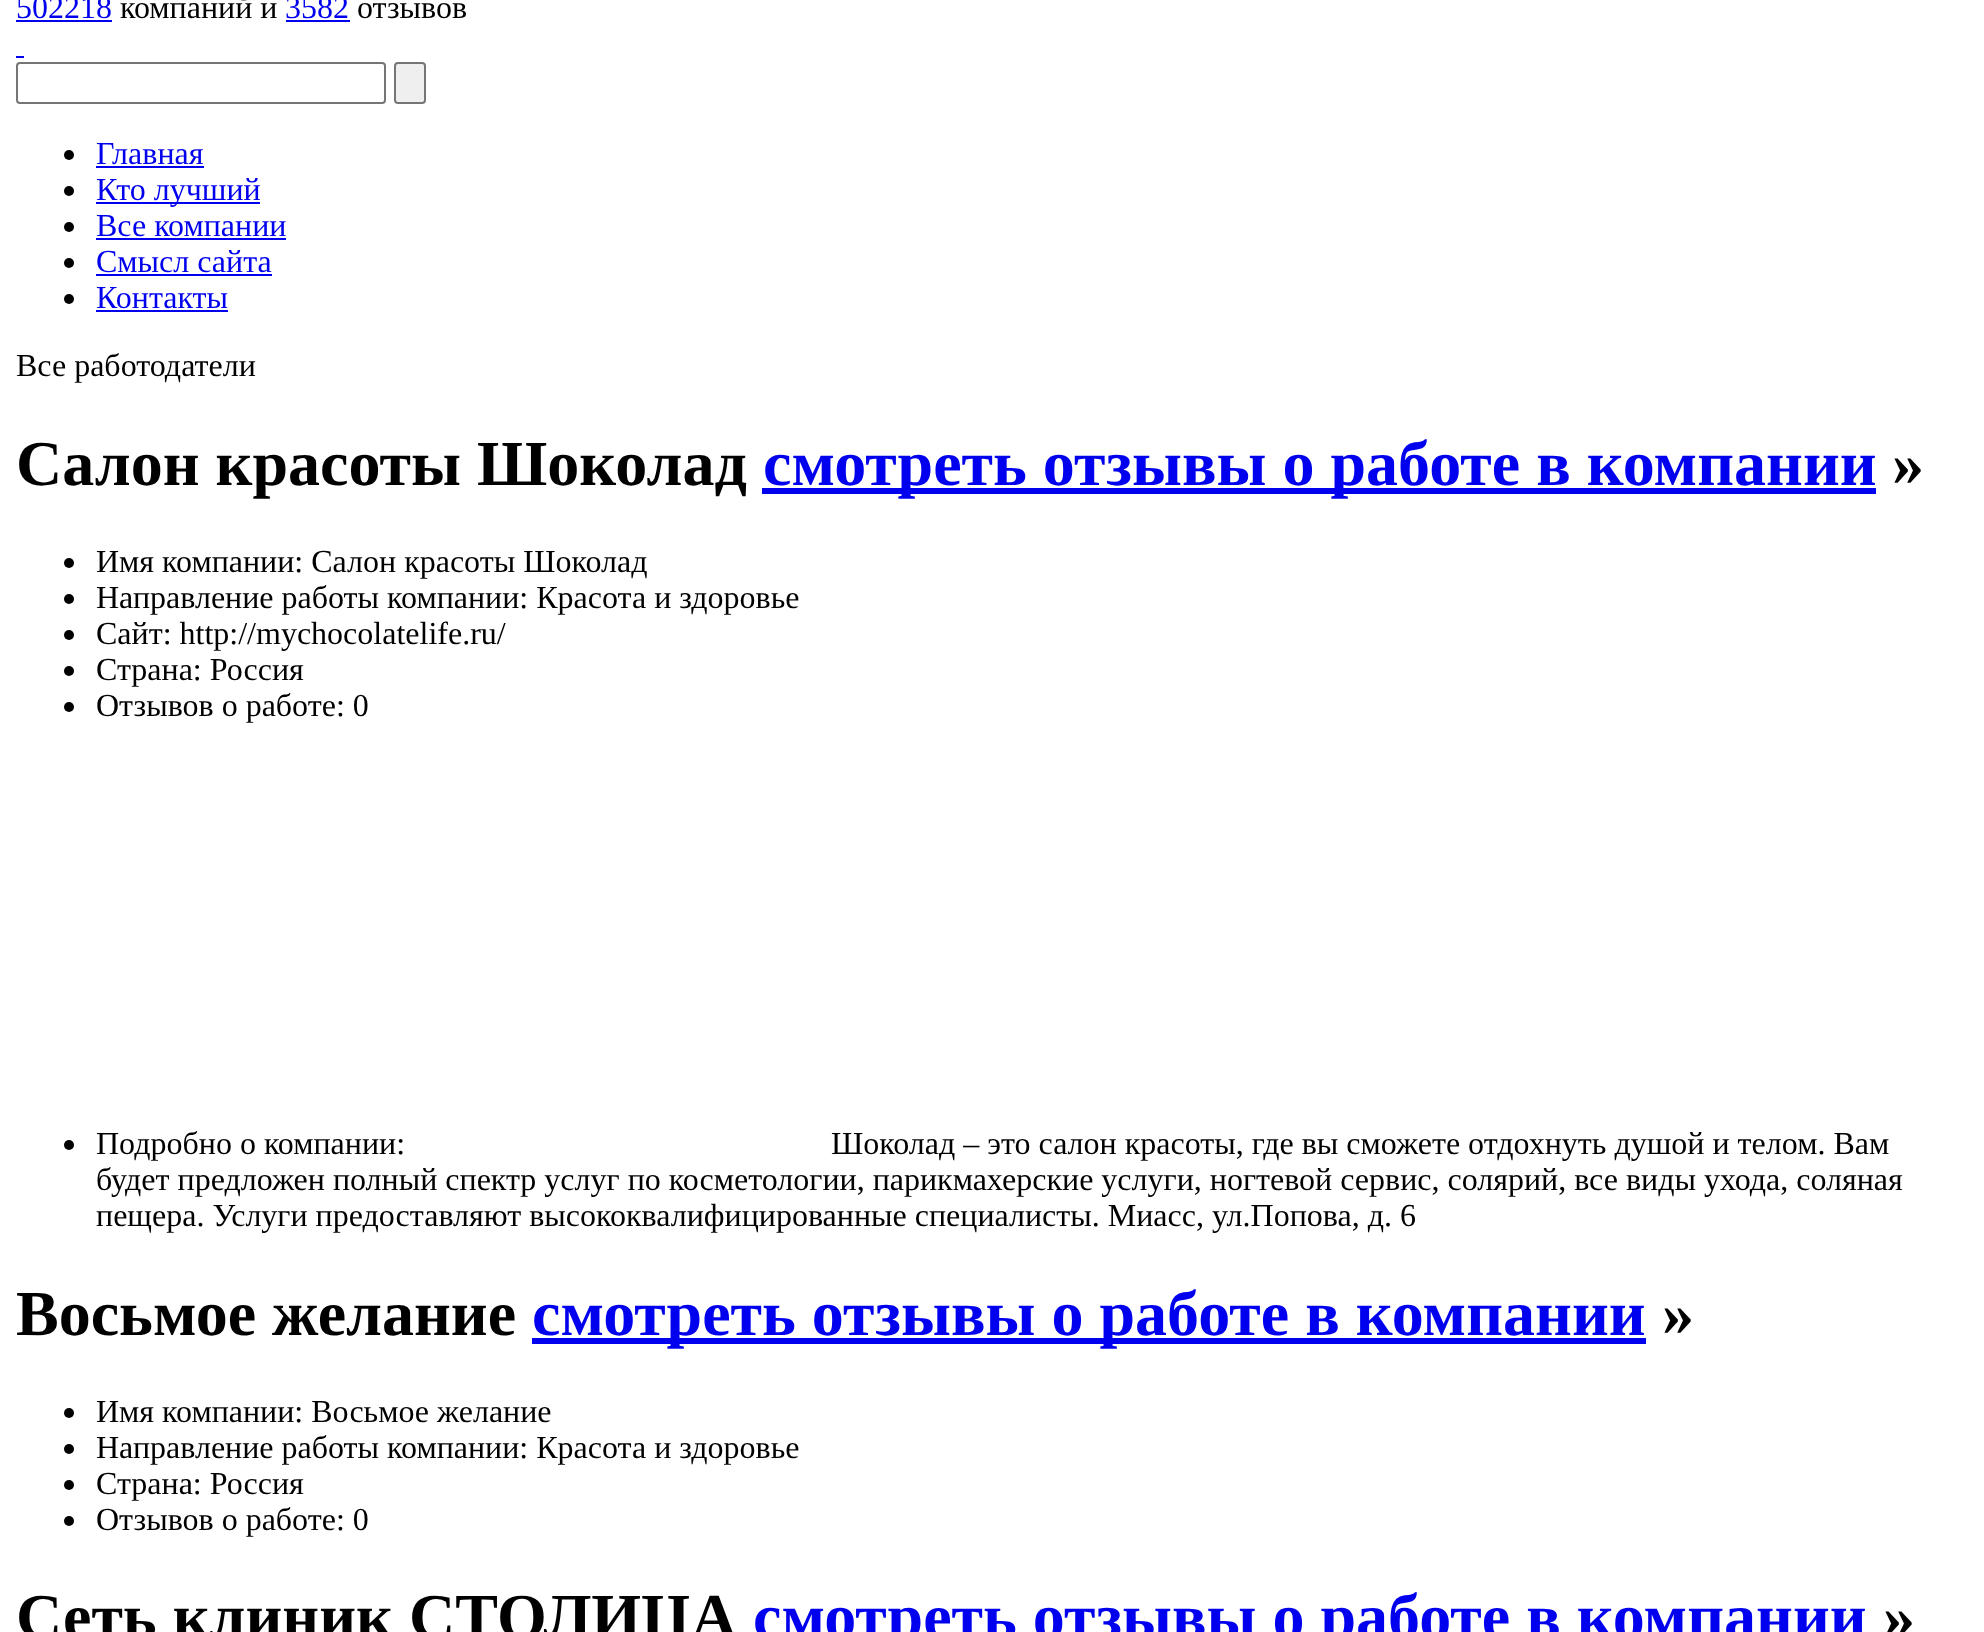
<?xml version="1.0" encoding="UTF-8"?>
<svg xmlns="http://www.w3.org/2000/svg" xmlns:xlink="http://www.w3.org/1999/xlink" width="1984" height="1632">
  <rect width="100%" height="100%" fill="#ffffff" />
  <rect x="16" y="20" width="96" height="2" fill="#0000ee" />
  <rect x="286" y="20" width="64" height="2" fill="#0000ee" />
  <rect x="16" y="56" width="8" height="2" fill="#0000ee" />
  <rect x="17" y="63" width="368" height="40" rx="3" fill="none" stroke="#767676" stroke-width="2" />
  <rect x="395" y="63" width="30" height="40" rx="3" fill="#efefef" stroke="#767676" stroke-width="2" />
  <circle cx="69" cy="155" r="5" fill="#000000" />
  <rect x="96" y="166" width="108" height="2" fill="#0000ee" />
  <circle cx="69" cy="191" r="5" fill="#000000" />
  <rect x="96" y="202" width="164" height="2" fill="#0000ee" />
  <circle cx="69" cy="227" r="5" fill="#000000" />
  <rect x="96" y="238" width="190" height="2" fill="#0000ee" />
  <circle cx="69" cy="263" r="5" fill="#000000" />
  <rect x="96" y="274" width="176" height="2" fill="#0000ee" />
  <circle cx="69" cy="299" r="5" fill="#000000" />
  <rect x="96" y="310" width="132" height="2" fill="#0000ee" />
  <rect x="762" y="488" width="1114" height="6" fill="#0000ee" />
  <circle cx="69" cy="563" r="5" fill="#000000" />
  <circle cx="69" cy="599" r="5" fill="#000000" />
  <circle cx="69" cy="635" r="5" fill="#000000" />
  <circle cx="69" cy="671" r="5" fill="#000000" />
  <circle cx="69" cy="707" r="5" fill="#000000" />
  <circle cx="69" cy="1145" r="5" fill="#000000" />
  <rect x="532" y="1338" width="1114" height="6" fill="#0000ee" />
  <circle cx="69" cy="1413" r="5" fill="#000000" />
  <circle cx="69" cy="1449" r="5" fill="#000000" />
  <circle cx="69" cy="1485" r="5" fill="#000000" />
  <circle cx="69" cy="1521" r="5" fill="#000000" />
  <text x="16" y="18" style="font-family: Liberation Serif; font-size: 32px; fill: #0000ee">502218</text>
  <text x="120" y="18" style="font-family: Liberation Serif; font-size: 32px; fill: #000000">компаний и</text>
  <text x="285" y="18" style="font-family: Liberation Serif; font-size: 32px; fill: #0000ee">3582</text>
  <text x="357" y="18" style="font-family: Liberation Serif; font-size: 32px; fill: #000000">отзывов</text>
  <text x="96" y="164" style="font-family: Liberation Serif; font-size: 32px; fill: #0000ee">Главная</text>
  <text x="96" y="200" style="font-family: Liberation Serif; font-size: 32px; fill: #0000ee">Кто лучший</text>
  <text x="96" y="236" style="font-family: Liberation Serif; font-size: 32px; fill: #0000ee">Все компании</text>
  <text x="96" y="272" style="font-family: Liberation Serif; font-size: 32px; fill: #0000ee">Смысл сайта</text>
  <text x="96" y="308" style="font-family: Liberation Serif; font-size: 32px; fill: #0000ee">Контакты</text>
  <text x="16" y="376" style="font-family: Liberation Serif; font-size: 32px; fill: #000000">Все работодатели</text>
  <text x="16" y="485" style="font-family: Liberation Serif; font-size: 64px; font-weight: bold; fill: #000000">Салон красоты Шоколад</text>
  <text x="763" y="485" style="font-family: Liberation Serif; font-size: 64px; font-weight: bold; fill: #0000ee">смотреть отзывы о работе в компании</text>
  <text x="1892" y="485" style="font-family: Liberation Serif; font-size: 64px; font-weight: bold; fill: #000000">»</text>
  <text x="96" y="572" style="font-family: Liberation Serif; font-size: 32px; fill: #000000">Имя компании: Салон красоты Шоколад</text>
  <text x="96" y="608" style="font-family: Liberation Serif; font-size: 32px; fill: #000000">Направление работы компании: Красота и здоровье</text>
  <text x="96" y="644" style="font-family: Liberation Serif; font-size: 32px; fill: #000000">Сайт: http://mychocolatelife.ru/</text>
  <text x="96" y="680" style="font-family: Liberation Serif; font-size: 32px; fill: #000000">Страна: Россия</text>
  <text x="96" y="716" style="font-family: Liberation Serif; font-size: 32px; fill: #000000">Отзывов о работе: 0</text>
  <text x="96" y="1154" style="font-family: Liberation Serif; font-size: 32px; fill: #000000">Подробно о компании:</text>
  <text x="831" y="1154" style="font-family: Liberation Serif; font-size: 32px; fill: #000000">Шоколад – это салон красоты, где вы сможете отдохнуть душой и телом. Вам</text>
  <text x="96" y="1190" style="font-family: Liberation Serif; font-size: 32px; fill: #000000">будет предложен полный спектр услуг по косметологии, парикмахерские услуги, ногтевой сервис, солярий, все виды ухода, соляная</text>
  <text x="96" y="1226" style="font-family: Liberation Serif; font-size: 32px; fill: #000000">пещера. Услуги предоставляют высококвалифицированные специалисты. Миасс, ул.Попова, д. 6</text>
  <text x="16" y="1335" style="font-family: Liberation Serif; font-size: 64px; font-weight: bold; fill: #000000">Восьмое желание</text>
  <text x="532" y="1335" style="font-family: Liberation Serif; font-size: 64px; font-weight: bold; fill: #0000ee">смотреть отзывы о работе в компании</text>
  <text x="1662" y="1335" style="font-family: Liberation Serif; font-size: 64px; font-weight: bold; fill: #000000">»</text>
  <text x="96" y="1422" style="font-family: Liberation Serif; font-size: 32px; fill: #000000">Имя компании: Восьмое желание</text>
  <text x="96" y="1458" style="font-family: Liberation Serif; font-size: 32px; fill: #000000">Направление работы компании: Красота и здоровье</text>
  <text x="96" y="1494" style="font-family: Liberation Serif; font-size: 32px; fill: #000000">Страна: Россия</text>
  <text x="96" y="1530" style="font-family: Liberation Serif; font-size: 32px; fill: #000000">Отзывов о работе: 0</text>
  <text x="16" y="1638" style="font-family: Liberation Serif; font-size: 64px; font-weight: bold; fill: #000000">Сеть клиник СТОЛИЦА</text>
  <text x="753" y="1638" style="font-family: Liberation Serif; font-size: 64px; font-weight: bold; fill: #0000ee">смотреть отзывы о работе в компании</text>
  <text x="1883" y="1638" style="font-family: Liberation Serif; font-size: 64px; font-weight: bold; fill: #000000">»</text>
</svg>
